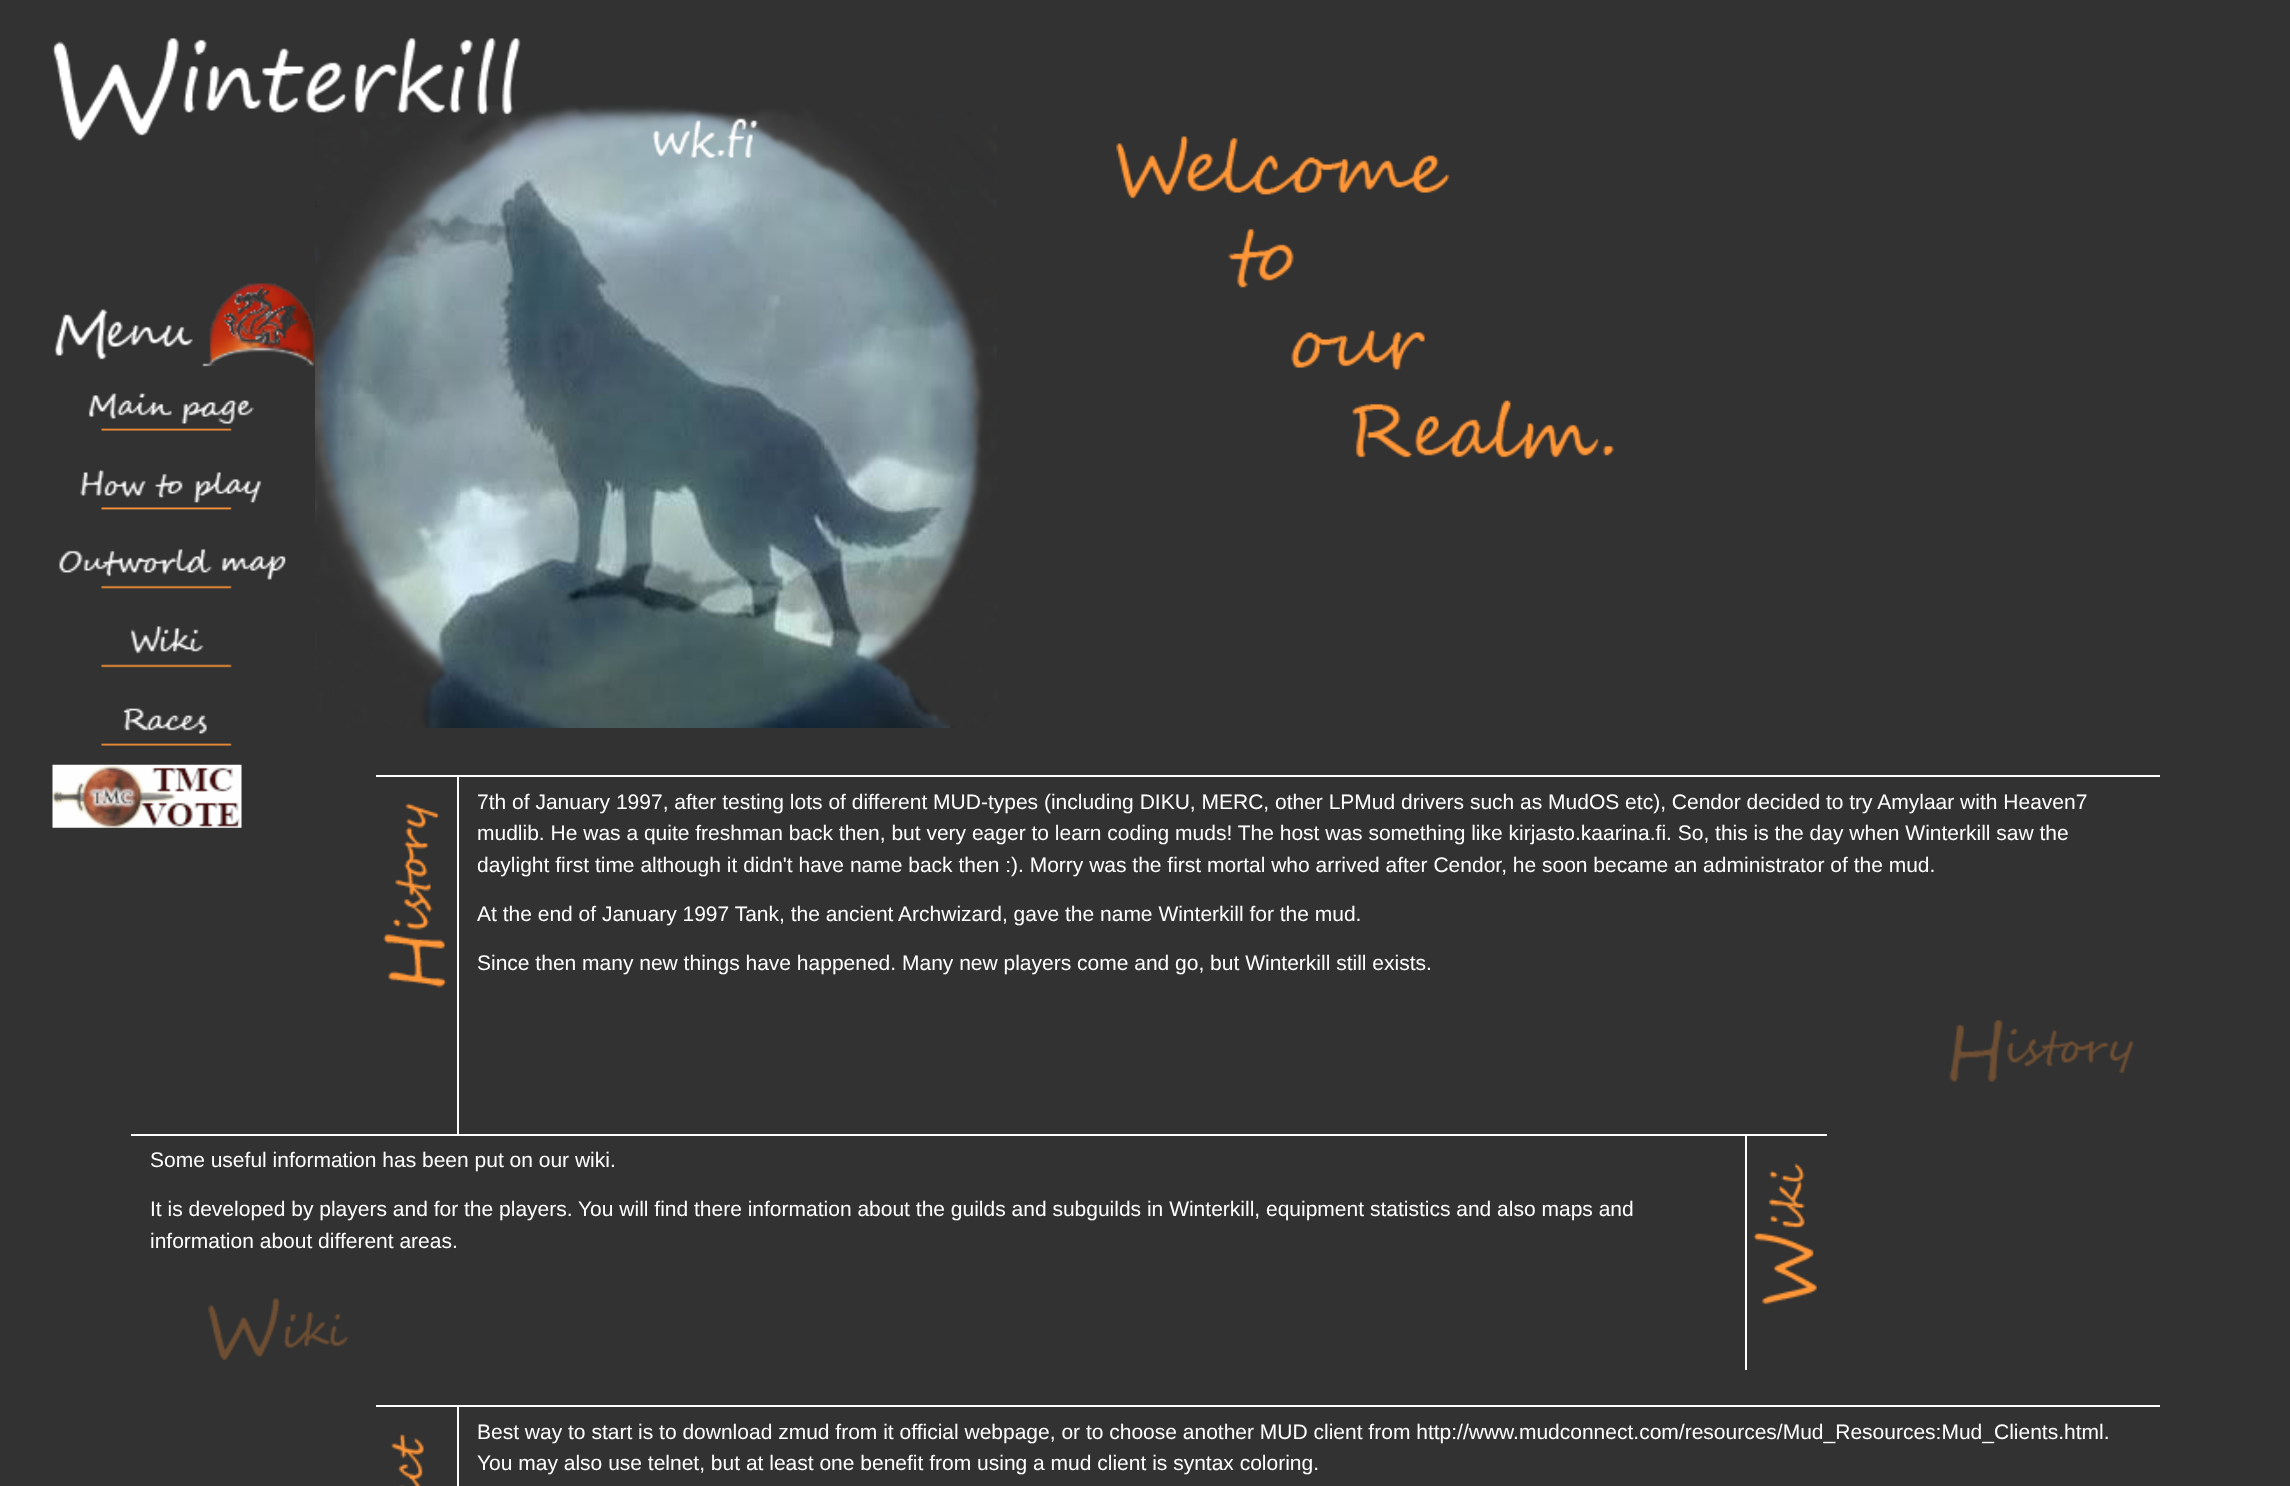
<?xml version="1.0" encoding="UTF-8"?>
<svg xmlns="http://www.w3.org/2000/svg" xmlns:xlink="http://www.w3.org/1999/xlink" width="2290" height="1486">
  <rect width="100%" height="100%" fill="#323232" />
  <image x="315" y="105" width="682" height="623" xlink:href="image1.png" />
  <image x="52" y="38" width="707" height="120" xlink:href="image2.png" />
  <image x="1116" y="136" width="498" height="323" xlink:href="image3.png" />
  <image x="54" y="282" width="262" height="85" xlink:href="image4.png" />
  <image x="88" y="393" width="167" height="38" xlink:href="image5.png" />
  <image x="80" y="470" width="182" height="40" xlink:href="image6.png" />
  <image x="59" y="549" width="227" height="40" xlink:href="image7.png" />
  <image x="101" y="626" width="131" height="42" xlink:href="image8.png" />
  <image x="101" y="708" width="131" height="38" xlink:href="image9.png" />
  <image x="52" y="764" width="190" height="64" xlink:href="image10.png" />
  <image x="1949" y="1020" width="185" height="62" xlink:href="image11.png" />
  <rect x="376" y="775" width="1784" height="2" fill="#ffffff" />
  <image x="383" y="803" width="64" height="185" xlink:href="image12.png" />
  <rect x="457" y="777" width="2" height="357" fill="#ffffff" />
  <image x="208" y="1298" width="141" height="63" xlink:href="image13.png" />
  <rect x="131" y="1134" width="1696" height="2" fill="#ffffff" />
  <image x="1753" y="1163" width="64" height="142" xlink:href="image14.png" />
  <rect x="1745" y="1136" width="2" height="234" fill="#ffffff" />
  <rect x="376" y="1405" width="1784" height="2" fill="#ffffff" />
  <image x="391" y="1434" width="33" height="52" xlink:href="image15.png" />
  <rect x="457" y="1407" width="2" height="79" fill="#ffffff" />
  <text x="477" y="809" style="font-family: Liberation Sans; font-size: 21px; fill: #ffffff">7th of January 1997, after testing lots of different MUD-types (including DIKU, MERC, other LPMud drivers such as MudOS etc), Cendor decided to try Amylaar with Heaven7</text>
  <text x="477" y="840" style="font-family: Liberation Sans; font-size: 21px; fill: #ffffff">mudlib. He was a quite freshman back then, but very eager to learn coding muds! The host was something like kirjasto.kaarina.fi. So, this is the day when Winterkill saw the</text>
  <text x="477" y="872" style="font-family: Liberation Sans; font-size: 21px; fill: #ffffff">daylight first time although it didn't have name back then :). Morry was the first mortal who arrived after Cendor, he soon became an administrator of the mud.</text>
  <text x="477" y="921" style="font-family: Liberation Sans; font-size: 21px; fill: #ffffff">At the end of January 1997 Tank, the ancient Archwizard, gave the name Winterkill for the mud.</text>
  <text x="477" y="970" style="font-family: Liberation Sans; font-size: 21px; fill: #ffffff">Since then many new things have happened. Many new players come and go, but Winterkill still exists.</text>
  <text x="150" y="1167" style="font-family: Liberation Sans; font-size: 21px; fill: #ffffff">Some useful information has been put on our wiki.</text>
  <text x="150" y="1216" style="font-family: Liberation Sans; font-size: 21px; fill: #ffffff">It is developed by players and for the players. You will find there information about the guilds and subguilds in Winterkill, equipment statistics and also maps and</text>
  <text x="150" y="1248" style="font-family: Liberation Sans; font-size: 21px; fill: #ffffff">information about different areas.</text>
  <text x="477" y="1439" style="font-family: Liberation Sans; font-size: 21px; fill: #ffffff">Best way to start is to download zmud from it official webpage, or to choose another MUD client from http://www.mudconnect.com/resources/Mud_Resources:Mud_Clients.html.</text>
  <text x="477" y="1470" style="font-family: Liberation Sans; font-size: 21px; fill: #ffffff">You may also use telnet, but at least one benefit from using a mud client is syntax coloring.</text>
</svg>
